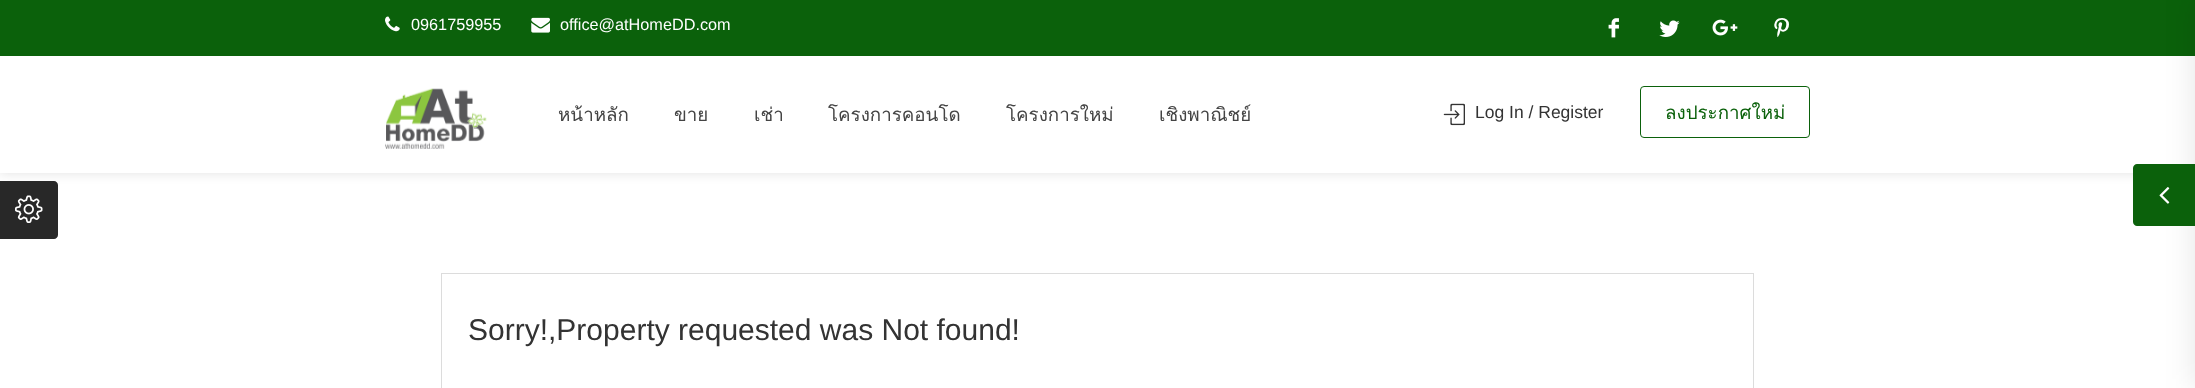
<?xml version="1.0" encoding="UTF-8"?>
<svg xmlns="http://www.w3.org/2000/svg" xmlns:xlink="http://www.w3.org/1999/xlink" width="2195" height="388">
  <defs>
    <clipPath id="clip1"><path d="M 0 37 h 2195 v 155 h -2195 z m 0 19 h 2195 v 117 h -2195 z" clip-rule="evenodd" /></clipPath>
  </defs>
  <rect width="100%" height="100%" fill="#ffffff" />
  <g clip-path="url(#clip1)">
    <rect y="56" width="2195" height="117" fill="#000000" fill-opacity="0.12" filter="blur(6px)" />
  </g>
  <rect width="2195" height="56" fill="#0b610b" />
  <image x="385" y="16" width="15" height="16" xlink:href="image1.png" />
  <image x="531" y="17" width="19" height="16" xlink:href="image2.png" />
  <image x="1608" y="18" width="11" height="20" xlink:href="image3.png" />
  <image x="1659" y="20" width="21" height="17" xlink:href="image4.png" />
  <image x="1712" y="19" width="26" height="17" xlink:href="image5.png" />
  <image x="385" y="88" width="102" height="61" xlink:href="image6.png" />
  <image x="1443" y="103" width="22" height="23" xlink:href="image7.png" />
  <rect x="1640.5" y="86.5" width="169" height="51" rx="3.5" fill="none" stroke="#0b610b" />
  <rect x="2195" width="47" height="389" fill="#000000" fill-opacity="0.1" filter="blur(15.5px)" />
  <path d="M 2137 164 h 58 v 62 h -58 c -2 0 -4 -2 -4 -4 v -54 c 0 -2 2 -4 4 -4 z" fill="#0b610b" />
  <image x="2159" y="187" width="11" height="17" xlink:href="image8.png" />
  <path d="M 0 181 h 54 c 2 0 4 2 4 4 v 50 c 0 2 -2 4 -4 4 h -54 z" fill="#282828" />
  <image x="15" y="195" width="28" height="28" xlink:href="image9.png" />
  <rect x="441.5" y="273.5" width="1312" height="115" fill="none" stroke="#dcdcdc" />
  <text x="411" y="30" style="font-family: Liberation Sans; font-size: 16.25px; fill: #ffffff">0961759955</text>
  <text x="560" y="30" style="font-family: Liberation Sans; font-size: 16.25px; fill: #ffffff">office@atHomeDD.com</text>
  <text x="1774" y="34" style="font-family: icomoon; font-size: 19px; fill: #ffffff">1</text>
  <text x="558" y="121" style="font-family: Loma; font-size: 18.75px; fill: #444444">หน้าหลัก</text>
  <text x="674" y="121" style="font-family: Loma; font-size: 18.75px; fill: #444444">ขาย</text>
  <text x="754" y="121" style="font-family: Loma; font-size: 18.75px; fill: #444444">เช่า</text>
  <text x="828" y="121" style="font-family: Loma; font-size: 18.75px; fill: #444444">โครงการคอนโด</text>
  <text x="1006" y="121" style="font-family: Loma; font-size: 18.75px; fill: #444444">โครงการใหม่</text>
  <text x="1159" y="121" style="font-family: Loma; font-size: 18.75px; fill: #444444">เชิงพาณิชย์</text>
  <text x="1475" y="118" style="font-family: Liberation Sans; font-size: 17.5px; fill: #333333">Log In / Register</text>
  <text x="1665" y="119" style="font-family: Loma; font-size: 18.75px; fill: #0b610b">ลงประกาศใหม่</text>
  <text x="468" y="340" style="font-family: Liberation Sans; font-size: 30px; fill: #333333">Sorry!,Property requested was Not found!</text>
</svg>
